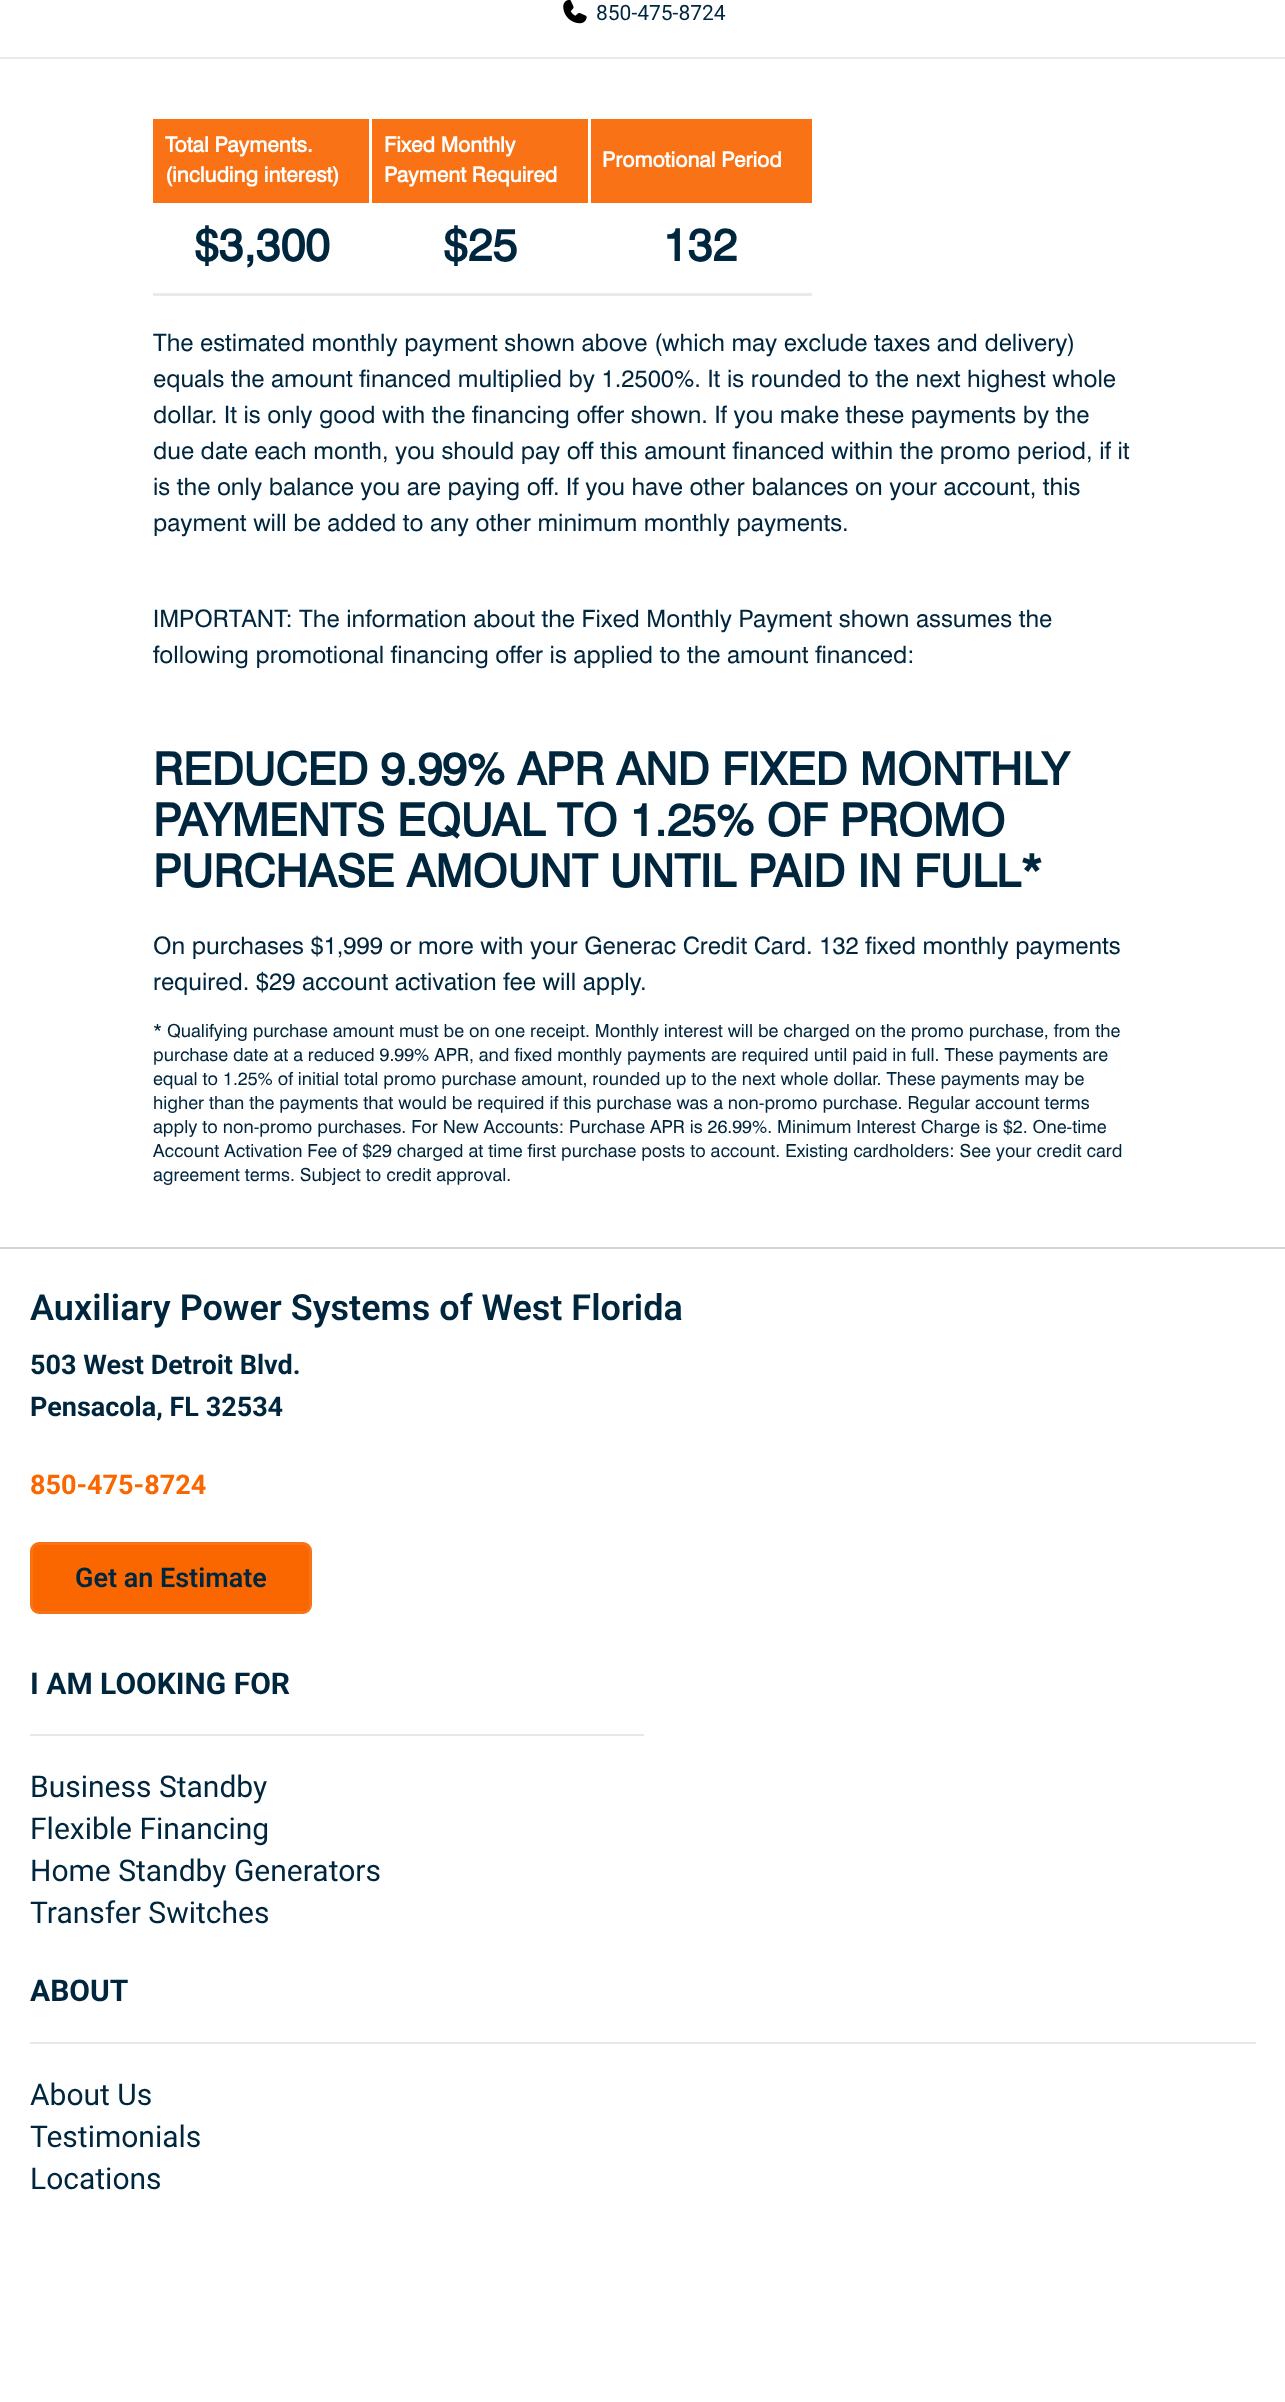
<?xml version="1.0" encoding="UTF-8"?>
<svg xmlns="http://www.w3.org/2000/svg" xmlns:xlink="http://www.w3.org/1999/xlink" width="1285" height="2402">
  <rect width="100%" height="100%" fill="#ffffff" />
  <rect y="57" width="1285" height="2" fill="#eaeaea" />
  <image x="563" y="0" width="24" height="24" xlink:href="image1.png" />
  <rect x="153" y="293" width="659" height="3" fill="#eaeaea" />
  <rect x="153" y="119" width="659" height="84" fill="#f97316" />
  <rect x="369" y="117" width="3" height="87" fill="#ffffff" />
  <rect x="588" y="117" width="3" height="87" fill="#ffffff" />
  <rect y="1247" width="1285" height="2" fill="#d1d5db" />
  <rect x="31.5" y="1543.5" width="279" height="69" rx="7.5" fill="#fa6600" stroke="#f97316" stroke-width="3" />
  <rect x="30" y="1734" width="614" height="2" fill="#e5e7eb" />
  <rect x="30" y="2042" width="1226" height="2" fill="#e5e7eb" />
  <text x="596" y="20" style="font-family: Roboto; font-size: 21px; fill: #00263e">850-475-8724</text>
  <text x="165" y="152" style="font-family: 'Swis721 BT'; font-size: 21px; font-weight: bold; fill: #ffffff">Total Payments.</text>
  <text x="165" y="182" style="font-family: 'Swis721 BT'; font-size: 21px; font-weight: bold; fill: #ffffff">(including interest)</text>
  <text x="384" y="152" style="font-family: 'Swis721 BT'; font-size: 21px; font-weight: bold; fill: #ffffff">Fixed Monthly</text>
  <text x="384" y="182" style="font-family: 'Swis721 BT'; font-size: 21px; font-weight: bold; fill: #ffffff">Payment Required</text>
  <text x="602" y="167" style="font-family: 'Swis721 BT'; font-size: 21px; font-weight: bold; fill: #ffffff">Promotional Period</text>
  <text x="194" y="261" style="font-family: 'Swis721 BT'; font-size: 45px; font-weight: bold; fill: #00263e">$3,300</text>
  <text x="443" y="261" style="font-family: 'Swis721 BT'; font-size: 45px; font-weight: bold; fill: #00263e">$25</text>
  <text x="663" y="261" style="font-family: 'Swis721 BT'; font-size: 45px; font-weight: bold; fill: #00263e">132</text>
  <text x="153" y="351" style="font-family: 'Swis721 BT'; font-size: 24px; fill: #00263e">The estimated monthly payment shown above (which may exclude taxes and delivery)</text>
  <text x="153" y="387" style="font-family: 'Swis721 BT'; font-size: 24px; fill: #00263e">equals the amount financed multiplied by 1.2500%. It is rounded to the next highest whole</text>
  <text x="153" y="423" style="font-family: 'Swis721 BT'; font-size: 24px; fill: #00263e">dollar. It is only good with the financing offer shown. If you make these payments by the</text>
  <text x="153" y="459" style="font-family: 'Swis721 BT'; font-size: 24px; fill: #00263e">due date each month, you should pay off this amount financed within the promo period, if it</text>
  <text x="153" y="495" style="font-family: 'Swis721 BT'; font-size: 24px; fill: #00263e">is the only balance you are paying off. If you have other balances on your account, this</text>
  <text x="153" y="531" style="font-family: 'Swis721 BT'; font-size: 24px; fill: #00263e">payment will be added to any other minimum monthly payments.</text>
  <text x="153" y="627" style="font-family: 'Swis721 BT'; font-size: 24px; fill: #00263e">IMPORTANT: The information about the Fixed Monthly Payment shown assumes the</text>
  <text x="153" y="663" style="font-family: 'Swis721 BT'; font-size: 24px; fill: #00263e">following promotional financing offer is applied to the amount financed:</text>
  <text x="153" y="785" style="font-family: 'Swis721 BT'; font-size: 45px; font-weight: bold; fill: #00263e">REDUCED 9.99% APR AND FIXED MONTHLY</text>
  <text x="153" y="836" style="font-family: 'Swis721 BT'; font-size: 45px; font-weight: bold; fill: #00263e">PAYMENTS EQUAL TO 1.25% OF PROMO</text>
  <text x="153" y="887" style="font-family: 'Swis721 BT'; font-size: 45px; font-weight: bold; fill: #00263e">PURCHASE AMOUNT UNTIL PAID IN FULL*</text>
  <text x="153" y="954" style="font-family: 'Swis721 BT'; font-size: 24px; fill: #00263e">On purchases $1,999 or more with your Generac Credit Card. 132 fixed monthly payments</text>
  <text x="153" y="990" style="font-family: 'Swis721 BT'; font-size: 24px; fill: #00263e">required. $29 account activation fee will apply.</text>
  <text x="153" y="1037" style="font-family: 'Swis721 BT'; font-size: 18px; fill: #00263e">* Qualifying purchase amount must be on one receipt. Monthly interest will be charged on the promo purchase, from the</text>
  <text x="153" y="1061" style="font-family: 'Swis721 BT'; font-size: 18px; fill: #00263e">purchase date at a reduced 9.99% APR, and fixed monthly payments are required until paid in full. These payments are</text>
  <text x="153" y="1085" style="font-family: 'Swis721 BT'; font-size: 18px; fill: #00263e">equal to 1.25% of initial total promo purchase amount, rounded up to the next whole dollar. These payments may be</text>
  <text x="153" y="1109" style="font-family: 'Swis721 BT'; font-size: 18px; fill: #00263e">higher than the payments that would be required if this purchase was a non-promo purchase. Regular account terms</text>
  <text x="153" y="1133" style="font-family: 'Swis721 BT'; font-size: 18px; fill: #00263e">apply to non-promo purchases. For New Accounts: Purchase APR is 26.99%. Minimum Interest Charge is $2. One-time</text>
  <text x="153" y="1157" style="font-family: 'Swis721 BT'; font-size: 18px; fill: #00263e">Account Activation Fee of $29 charged at time first purchase posts to account. Existing cardholders: See your credit card</text>
  <text x="153" y="1181" style="font-family: 'Swis721 BT'; font-size: 18px; fill: #00263e">agreement terms. Subject to credit approval.</text>
  <text x="30" y="1320" style="font-family: Roboto; font-size: 36px; font-weight: 600; fill: #00263e">Auxiliary Power Systems of West Florida</text>
  <text x="30" y="1374" style="font-family: Roboto; font-size: 27px; font-weight: bold; fill: #00263e">503 West Detroit Blvd.</text>
  <text x="30" y="1416" style="font-family: Roboto; font-size: 27px; font-weight: bold; fill: #00263e">Pensacola, FL 32534</text>
  <text x="30" y="1494" style="font-family: Roboto; font-size: 27px; font-weight: bold; fill: #fa6600">850-475-8724</text>
  <text x="75" y="1587" style="font-family: Roboto; font-size: 27px; font-weight: 600; fill: #00263e">Get an Estimate</text>
  <text x="30" y="1694" style="font-family: Roboto; font-size: 30px; font-weight: bold; fill: #00263e">I AM LOOKING FOR</text>
  <text x="30" y="1797" style="font-family: Roboto; font-size: 30px; fill: #00263e">Business Standby</text>
  <text x="30" y="1839" style="font-family: Roboto; font-size: 30px; fill: #00263e">Flexible Financing</text>
  <text x="30" y="1881" style="font-family: Roboto; font-size: 30px; fill: #00263e">Home Standby Generators</text>
  <text x="30" y="1923" style="font-family: Roboto; font-size: 30px; fill: #00263e">Transfer Switches</text>
  <text x="30" y="2001" style="font-family: Roboto; font-size: 30px; font-weight: bold; fill: #00263e">ABOUT</text>
  <text x="30" y="2105" style="font-family: Roboto; font-size: 30px; fill: #00263e">About Us</text>
  <text x="30" y="2147" style="font-family: Roboto; font-size: 30px; fill: #00263e">Testimonials</text>
  <text x="30" y="2189" style="font-family: Roboto; font-size: 30px; fill: #00263e">Locations</text>
</svg>
